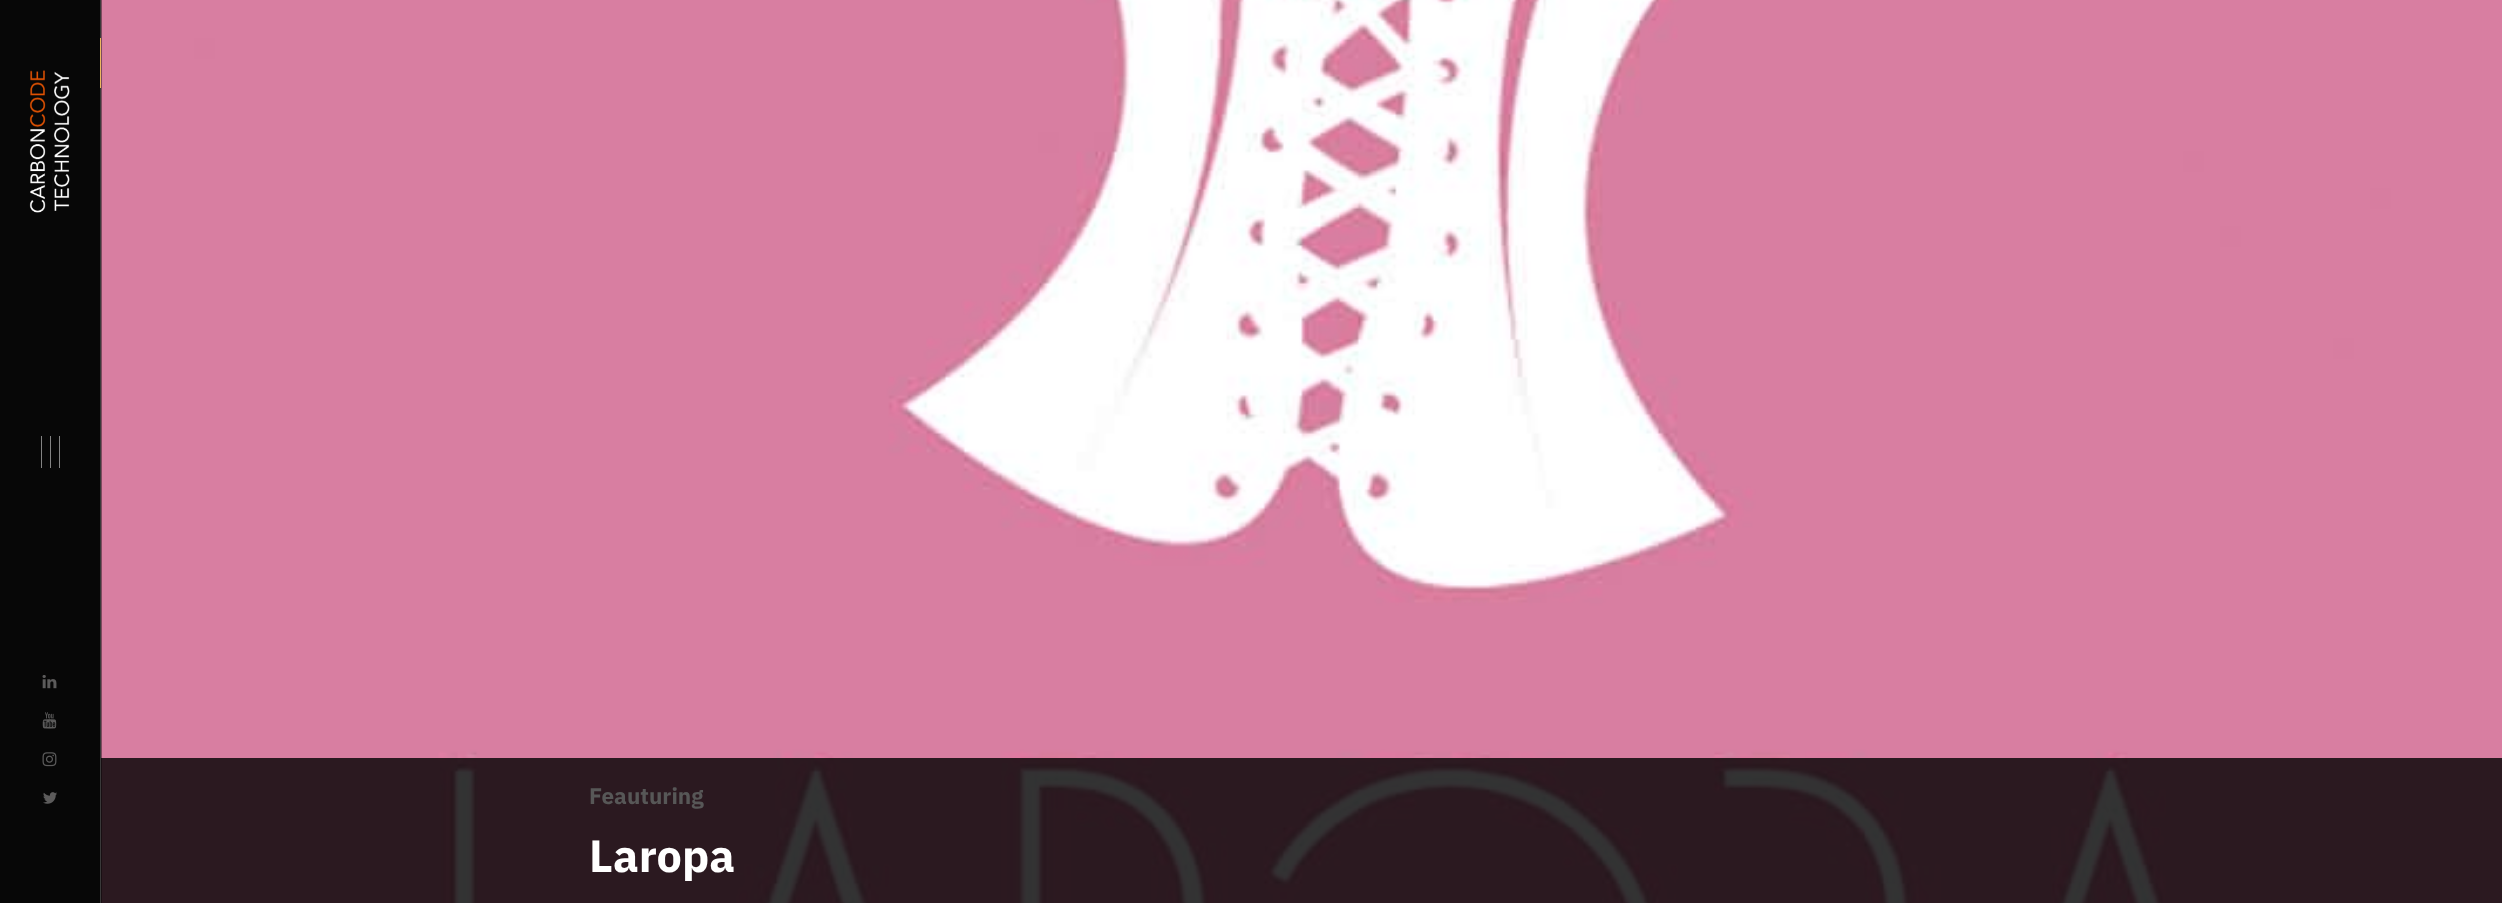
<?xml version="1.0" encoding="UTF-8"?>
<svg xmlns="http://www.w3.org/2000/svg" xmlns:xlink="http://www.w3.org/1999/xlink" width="2502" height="903">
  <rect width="100%" height="100%" fill="#070707" />
  <rect x="100" width="1" height="903" fill="#393939" />
  <rect x="100" y="38" width="1" height="50" fill="#ebb85e" />
  <image x="29" y="70" width="41" height="143" xlink:href="image1.png" />
  <rect x="41" y="436" width="1" height="32" fill="#838383" />
  <rect x="50" y="436" width="1" height="32" fill="#838383" />
  <rect x="59" y="436" width="1" height="32" fill="#838383" />
  <image x="42" y="675" width="15" height="14" xlink:href="image2.png" />
  <image x="42" y="712" width="15" height="17" xlink:href="image3.png" />
  <image x="42" y="752" width="15" height="15" xlink:href="image4.png" />
  <image x="43" y="792" width="14" height="12" xlink:href="image5.png" />
  <image x="101" y="0" width="2401" height="903" xlink:href="image6.png" />
  <rect x="101" y="758" width="2401" height="145" fill="#000000" fill-opacity="0.8" />
  <text x="589" y="804" style="font-family: IBM Plex Sans; font-size: 22.5px; font-weight: bold; fill: #575757">Feauturing</text>
  <text x="589" y="872" style="font-family: IBM Plex Sans; font-size: 45px; font-weight: bold; fill: #ffffff">Laropa</text>
</svg>
